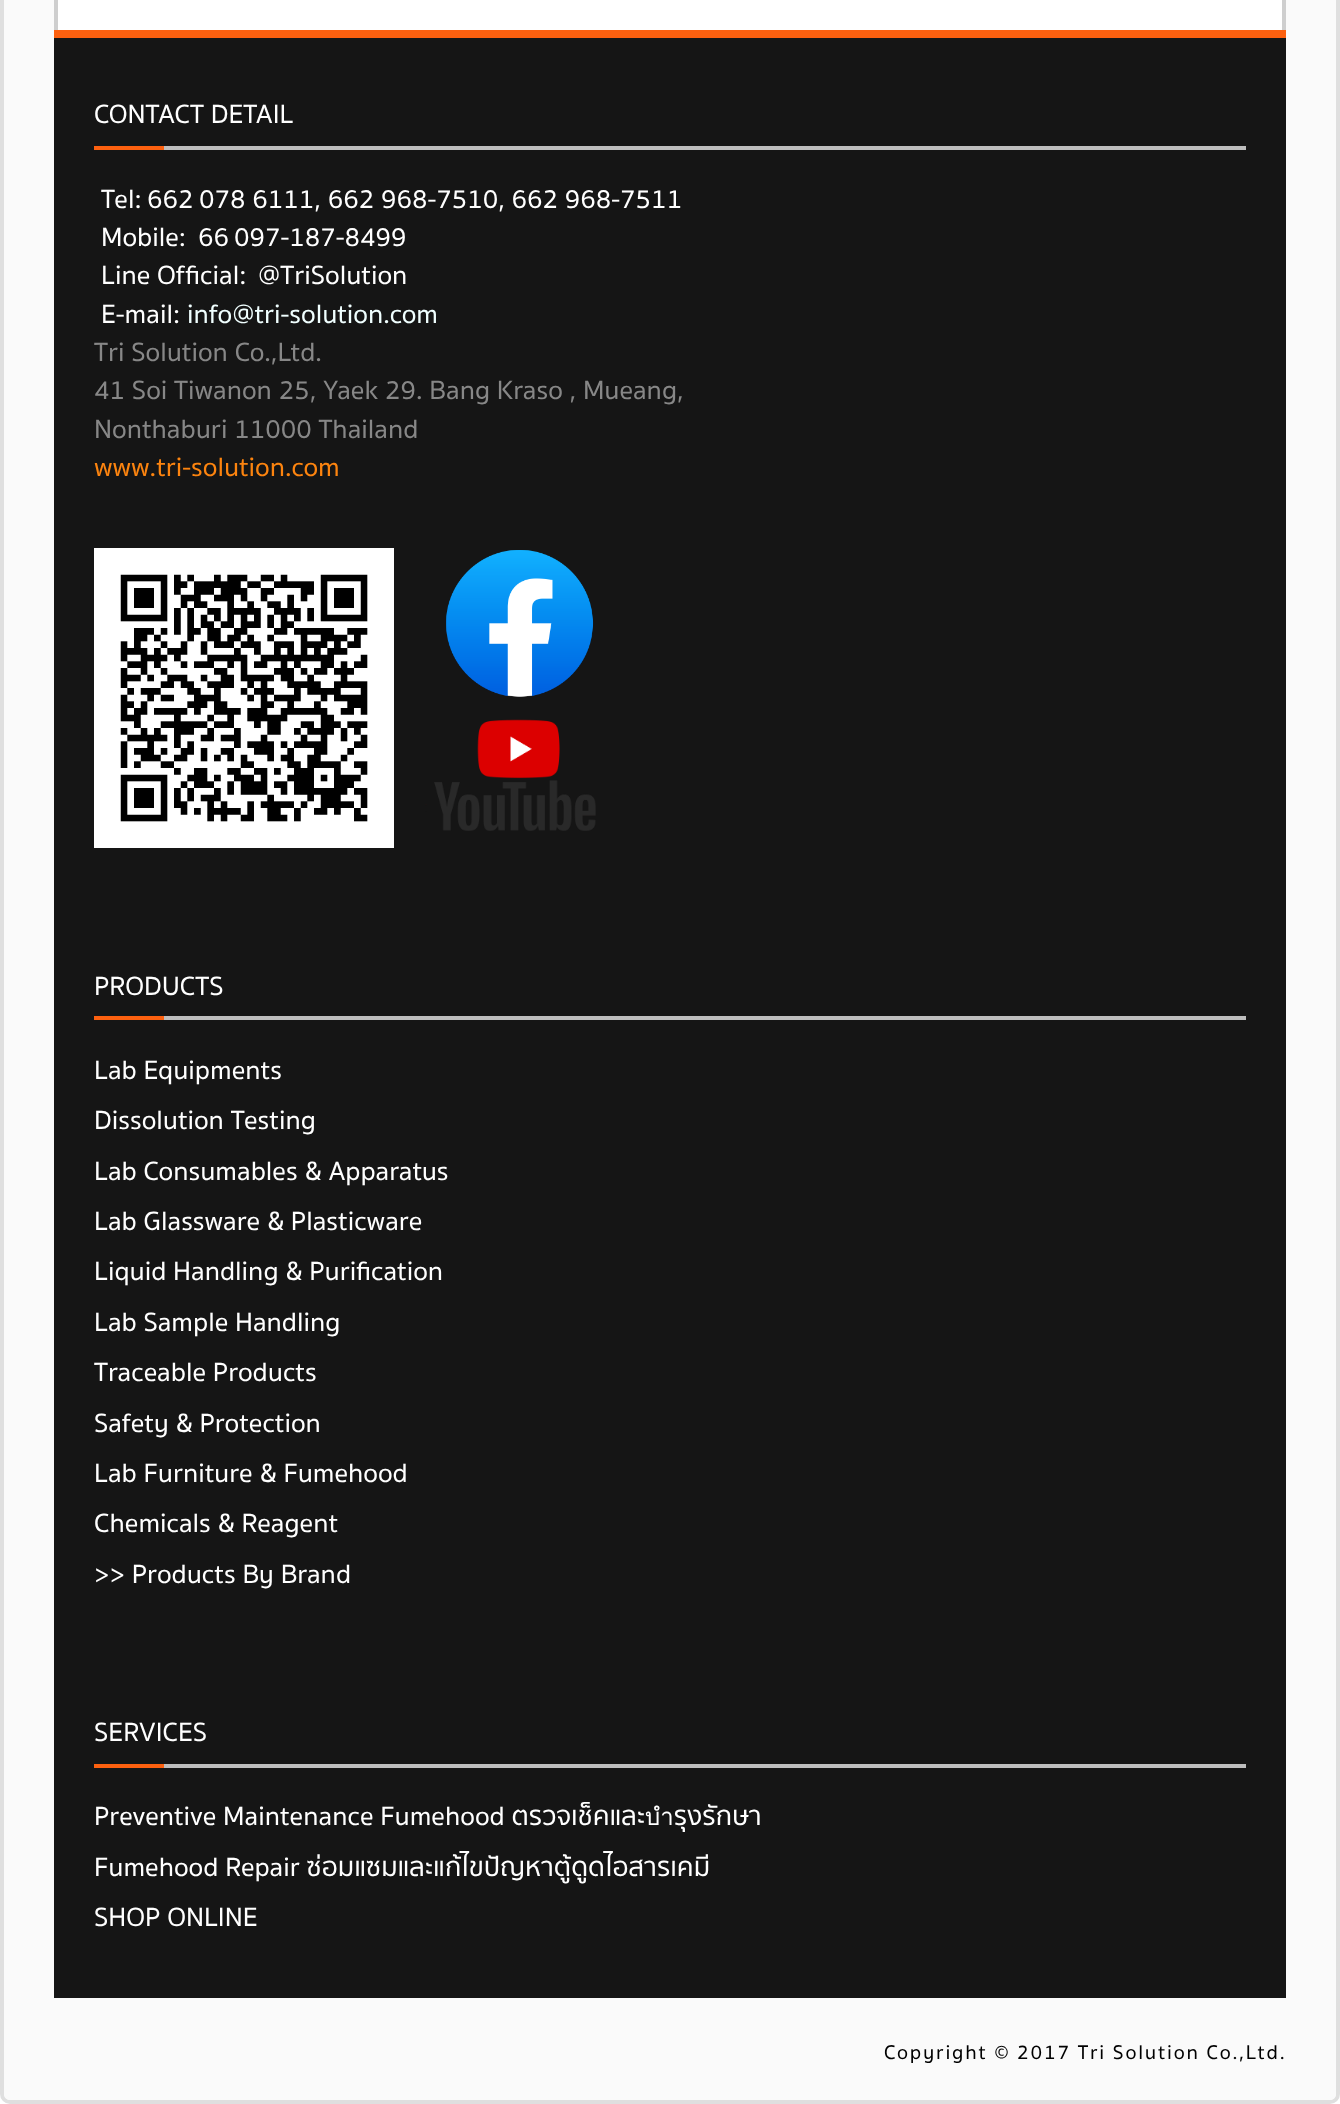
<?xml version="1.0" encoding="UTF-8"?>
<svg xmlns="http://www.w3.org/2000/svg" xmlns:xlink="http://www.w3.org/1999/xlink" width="1340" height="2104">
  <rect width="100%" height="100%" fill="#ffffff" />
  <rect x="2" y="-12" width="1336" height="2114" rx="8" fill="#fafafa" stroke="#dfdfdf" stroke-width="4" />
  <rect x="58" width="1224" height="30" fill="#ffffff" />
  <path d="M 74 -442 h 1192 c 11 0 20 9 20 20 v 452 h -1232 v -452 c 0 -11 9 -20 20 -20 z m 0 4 h 1192 c 9 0 16 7 16 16 v 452 h -1224 v -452 c 0 -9 7 -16 16 -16 z" fill="#cecece" fill-rule="evenodd" />
  <rect x="54" y="38" width="1232" height="1960" fill="#151515" />
  <rect x="54" y="30" width="1232" height="8" fill="#fc600f" />
  <rect x="164" y="146" width="1082" height="4" fill="#bdbdbd" />
  <rect x="94" y="146" width="70" height="4" fill="#fc600f" />
  <image x="94" y="548" width="300" height="300" xlink:href="image1.png" />
  <image x="446" y="550" width="148" height="147" xlink:href="image2.png" />
  <image x="425" y="719" width="171" height="112" xlink:href="image3.png" />
  <rect x="164" y="1016" width="1082" height="4" fill="#bdbdbd" />
  <rect x="94" y="1016" width="70" height="4" fill="#fc600f" />
  <rect x="164" y="1764" width="1082" height="4" fill="#bdbdbd" />
  <rect x="94" y="1764" width="70" height="4" fill="#fc600f" />
  <path d="M 4 1998 h 1332 v 96 c 0 3.5 -2.5 6 -6 6 h -1320 c -3.5 0 -6 -2.5 -6 -6 z" fill="#fafafa" />
  <text x="94" y="123" style="font-family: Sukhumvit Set; font-size: 24px; font-weight: 500; fill: #ffffff">CONTACT DETAIL</text>
  <text x="101" y="208" style="font-family: Sukhumvit Set; font-size: 24px; font-weight: 500; fill: #ffffff">Tel:</text>
  <text x="147" y="208" style="font-family: Sukhumvit Set; font-size: 24px; font-weight: 500; fill: #ffffff">662</text>
  <text x="199" y="208" style="font-family: Sukhumvit Set; font-size: 24px; font-weight: 500; fill: #ffffff">078 6111, 662 968-7510, 662 968-7511</text>
  <text x="101" y="246" style="font-family: Sukhumvit Set; font-size: 24px; font-weight: 500; fill: #ffffff">Mobile:</text>
  <text x="198" y="246" style="font-family: Sukhumvit Set; font-size: 24px; font-weight: 500; fill: #ffffff">66</text>
  <text x="234" y="246" style="font-family: Sukhumvit Set; font-size: 24px; font-weight: 500; fill: #ffffff">097-187-8499</text>
  <text x="101" y="284" style="font-family: Sukhumvit Set; font-size: 24px; font-weight: 500; fill: #ffffff">Line Official:</text>
  <text x="258" y="284" style="font-family: Sukhumvit Set; font-size: 24px; font-weight: 500; fill: #ffffff">@TriSolution</text>
  <text x="101" y="323" style="font-family: Sukhumvit Set; font-size: 24px; font-weight: 500; fill: #ffffff">E-mail:</text>
  <text x="187" y="323" style="font-family: Sukhumvit Set; font-size: 24px; font-weight: 500; fill: #f0ffff">info@tri-solution.com</text>
  <text x="94" y="361" style="font-family: Sukhumvit Set; font-size: 24px; font-weight: 500; fill: #878787">Tri Solution Co.,Ltd.</text>
  <text x="94" y="399" style="font-family: Sukhumvit Set; font-size: 24px; font-weight: 500; fill: #878787">41 Soi Tiwanon 25, Yaek 29. Bang Kraso , Mueang,</text>
  <text x="94" y="438" style="font-family: Sukhumvit Set; font-size: 24px; font-weight: 500; fill: #878787">Nonthaburi 11000 Thailand</text>
  <text x="94" y="476" style="font-family: Sukhumvit Set; font-size: 24px; font-weight: 500; fill: #fc840f">www.tri-solution.com</text>
  <text x="94" y="995" style="font-family: Sukhumvit Set; font-size: 24px; font-weight: 500; fill: #ffffff">PRODUCTS</text>
  <text x="94" y="1079" style="font-family: Sukhumvit Set; font-size: 24px; font-weight: 500; fill: #ffffff">Lab Equipments</text>
  <text x="94" y="1129" style="font-family: Sukhumvit Set; font-size: 24px; font-weight: 500; fill: #ffffff">Dissolution Testing</text>
  <text x="94" y="1180" style="font-family: Sukhumvit Set; font-size: 24px; font-weight: 500; fill: #ffffff">Lab Consumables &amp; Apparatus</text>
  <text x="94" y="1230" style="font-family: Sukhumvit Set; font-size: 24px; font-weight: 500; fill: #ffffff">Lab Glassware &amp; Plasticware</text>
  <text x="94" y="1280" style="font-family: Sukhumvit Set; font-size: 24px; font-weight: 500; fill: #ffffff">Liquid Handling &amp; Purification</text>
  <text x="94" y="1331" style="font-family: Sukhumvit Set; font-size: 24px; font-weight: 500; fill: #ffffff">Lab Sample Handling</text>
  <text x="94" y="1381" style="font-family: Sukhumvit Set; font-size: 24px; font-weight: 500; fill: #ffffff">Traceable Products</text>
  <text x="94" y="1432" style="font-family: Sukhumvit Set; font-size: 24px; font-weight: 500; fill: #ffffff">Safety &amp; Protection</text>
  <text x="94" y="1482" style="font-family: Sukhumvit Set; font-size: 24px; font-weight: 500; fill: #ffffff">Lab Furniture &amp; Fumehood</text>
  <text x="94" y="1532" style="font-family: Sukhumvit Set; font-size: 24px; font-weight: 500; fill: #ffffff">Chemicals &amp; Reagent</text>
  <text x="94" y="1583" style="font-family: Sukhumvit Set; font-size: 24px; font-weight: 500; fill: #ffffff">&gt;&gt; Products By Brand</text>
  <text x="94" y="1741" style="font-family: Sukhumvit Set; font-size: 24px; font-weight: 500; fill: #ffffff">SERVICES</text>
  <text x="94" y="1825" style="font-family: Sukhumvit Set; font-size: 24px; font-weight: 500; fill: #ffffff">Preventive Maintenance Fumehood ตรวจเช็คและบำรุงรักษา</text>
  <text x="94" y="1876" style="font-family: Sukhumvit Set; font-size: 24px; font-weight: 500; fill: #ffffff">Fumehood Repair ซ่อมแซมและแก้ไขปัญหาตู้ดูดไอสารเคมี</text>
  <text x="94" y="1926" style="font-family: Sukhumvit Set; font-size: 24px; font-weight: 500; fill: #ffffff">SHOP ONLINE</text>
  <text x="884" y="2059" style="font-family: Sukhumvit Set; font-size: 18px; font-weight: 500; letter-spacing: 1.8px; fill: #000000">Copyright © 2017 Tri Solution Co.,Ltd.</text>
</svg>
